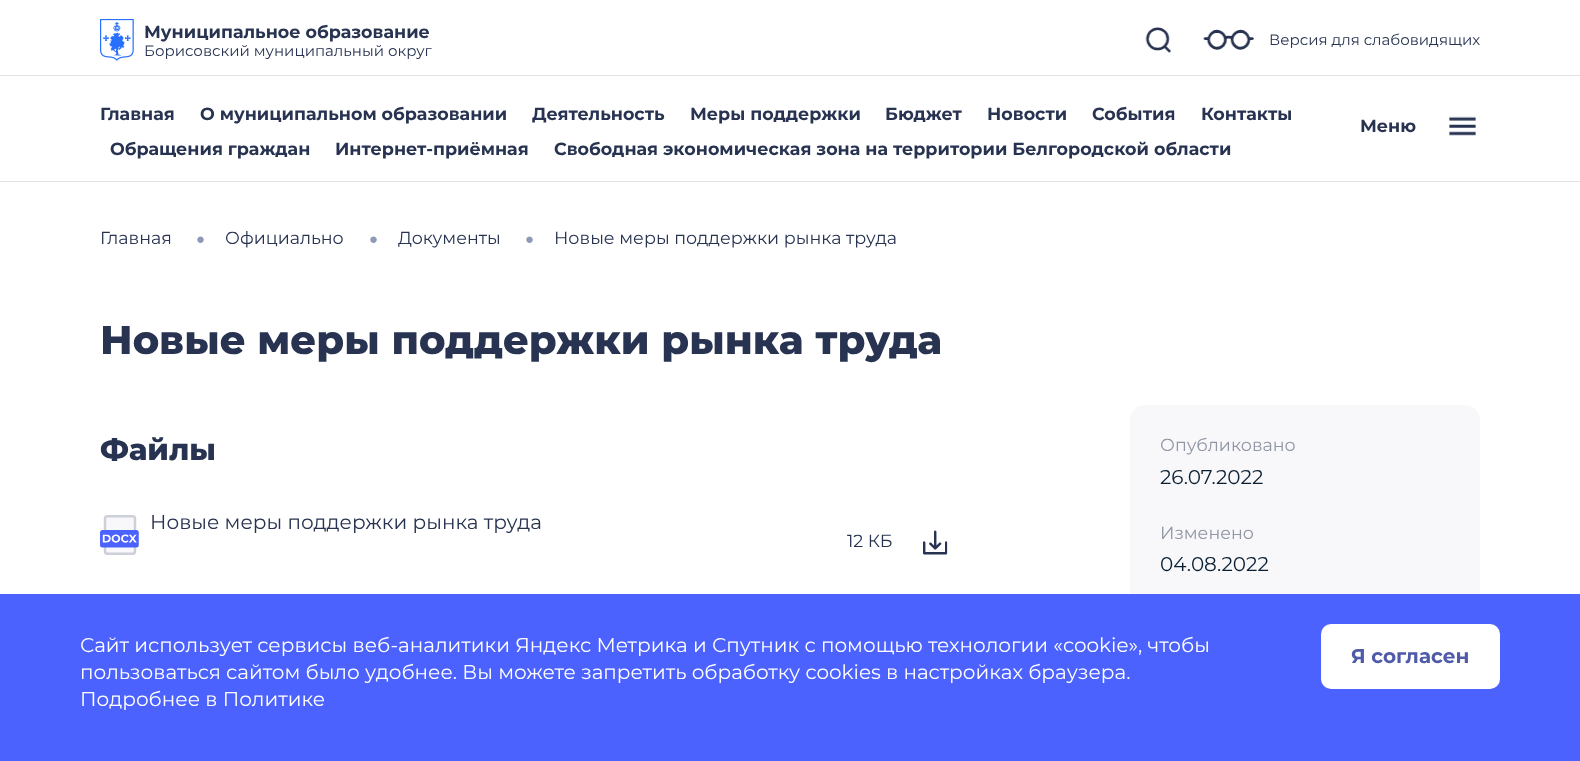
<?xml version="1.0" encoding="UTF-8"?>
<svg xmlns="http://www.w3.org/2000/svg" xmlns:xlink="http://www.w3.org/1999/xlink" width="1580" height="761">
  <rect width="100%" height="100%" fill="#ffffff" />
  <rect y="75" width="1580" height="1" fill="#e3e3e3" />
  <image x="100" y="19" width="34" height="42" xlink:href="image1.png" />
  <image x="1145" y="27" width="26" height="26" xlink:href="image2.png" />
  <image x="1203" y="29" width="51" height="21" xlink:href="image3.png" />
  <rect y="181" width="1580" height="1" fill="#e3e3e3" />
  <image x="1449" y="116" width="27" height="20" xlink:href="image4.png" />
  <image x="100" y="515" width="39" height="40" xlink:href="image5.png" />
  <image x="923" y="530" width="25" height="25" xlink:href="image6.png" />
  <rect x="1130" y="405" width="350" height="205" rx="15" fill="#f8f8fa" />
  <rect y="594" width="1580" height="167" fill="#4b62ff" />
  <rect x="1321" y="624" width="179" height="65" rx="10" fill="#ffffff" />
  <text x="144" y="38" style="font-family: Montserrat; font-size: 17.5px; font-weight: bold; fill: #273350">Муниципальное образование</text>
  <text x="144" y="56" style="font-family: Montserrat; font-size: 15px; fill: #273350">Борисовский муниципальный округ</text>
  <text x="1269" y="45" style="font-family: Montserrat; font-size: 15px; fill: #273350">Версия для слабовидящих</text>
  <text x="100" y="120" style="font-family: Montserrat; font-size: 17.5px; font-weight: bold; fill: #273350">Главная</text>
  <text x="200" y="120" style="font-family: Montserrat; font-size: 17.5px; font-weight: bold; fill: #273350">О муниципальном образовании</text>
  <text x="532" y="120" style="font-family: Montserrat; font-size: 17.5px; font-weight: bold; fill: #273350">Деятельность</text>
  <text x="690" y="120" style="font-family: Montserrat; font-size: 17.5px; font-weight: bold; fill: #273350">Меры поддержки</text>
  <text x="885" y="120" style="font-family: Montserrat; font-size: 17.5px; font-weight: bold; fill: #273350">Бюджет</text>
  <text x="987" y="120" style="font-family: Montserrat; font-size: 17.5px; font-weight: bold; fill: #273350">Новости</text>
  <text x="1092" y="120" style="font-family: Montserrat; font-size: 17.5px; font-weight: bold; fill: #273350">События</text>
  <text x="1201" y="120" style="font-family: Montserrat; font-size: 17.5px; font-weight: bold; fill: #273350">Контакты</text>
  <text x="110" y="155" style="font-family: Montserrat; font-size: 17.5px; font-weight: bold; fill: #273350">Обращения граждан</text>
  <text x="335" y="155" style="font-family: Montserrat; font-size: 17.5px; font-weight: bold; fill: #273350">Интернет-приёмная</text>
  <text x="554" y="155" style="font-family: Montserrat; font-size: 17.5px; font-weight: bold; fill: #273350">Свободная экономическая зона на территории Белгородской области</text>
  <text x="1360" y="132" style="font-family: Montserrat; font-size: 17.5px; font-weight: bold; fill: #273350">Меню</text>
  <text x="100" y="244" style="font-family: Montserrat; font-size: 17.5px; fill: #273350">Главная</text>
  <text x="196" y="244" style="font-family: Liberation Serif; font-size: 15px; fill: #8c9ab8">●</text>
  <text x="225" y="244" style="font-family: Montserrat; font-size: 17.5px; fill: #273350">Официально</text>
  <text x="369" y="244" style="font-family: Liberation Serif; font-size: 15px; fill: #8c9ab8">●</text>
  <text x="398" y="244" style="font-family: Montserrat; font-size: 17.5px; fill: #273350">Документы</text>
  <text x="525" y="244" style="font-family: Liberation Serif; font-size: 15px; fill: #8c9ab8">●</text>
  <text x="554" y="244" style="font-family: Montserrat; font-size: 17.5px; fill: #273350">Новые меры поддержки рынка труда</text>
  <text x="100" y="354" style="font-family: Montserrat; font-size: 40px; font-weight: 800; fill: #273350">Новые меры поддержки рынка труда</text>
  <text x="100" y="460" style="font-family: Montserrat; font-size: 30px; font-weight: 800; fill: #273350">Файлы</text>
  <text x="150" y="529" style="font-family: Montserrat; font-size: 20px; fill: #273350">Новые меры поддержки рынка труда</text>
  <text x="847" y="547" style="font-family: Montserrat; font-size: 17.5px; fill: #273350">12 КБ</text>
  <text x="1160" y="451" style="font-family: Montserrat; font-size: 17.5px; fill: #9096a5">Опубликовано</text>
  <text x="1160" y="484" style="font-family: Montserrat; font-size: 20px; fill: #0b1f33">26.07.2022</text>
  <text x="1160" y="539" style="font-family: Montserrat; font-size: 17.5px; fill: #9096a5">Изменено</text>
  <text x="1160" y="571" style="font-family: Montserrat; font-size: 20px; fill: #0b1f33">04.08.2022</text>
  <text x="80" y="652" style="font-family: Montserrat; font-size: 20px; fill: #ffffff">Сайт использует сервисы веб-аналитики Яндекс Метрика и Спутник с помощью технологии «cookie», чтобы</text>
  <text x="80" y="679" style="font-family: Montserrat; font-size: 20px; fill: #ffffff">пользоваться сайтом было удобнее. Вы можете запретить обработку cookies в настройках браузера.</text>
  <text x="80" y="706" style="font-family: Montserrat; font-size: 20px; fill: #ffffff">Подробнее в Политике</text>
  <text x="1351" y="663" style="font-family: Montserrat; font-size: 20px; font-weight: bold; fill: #4f5aa8">Я согласен</text>
</svg>
